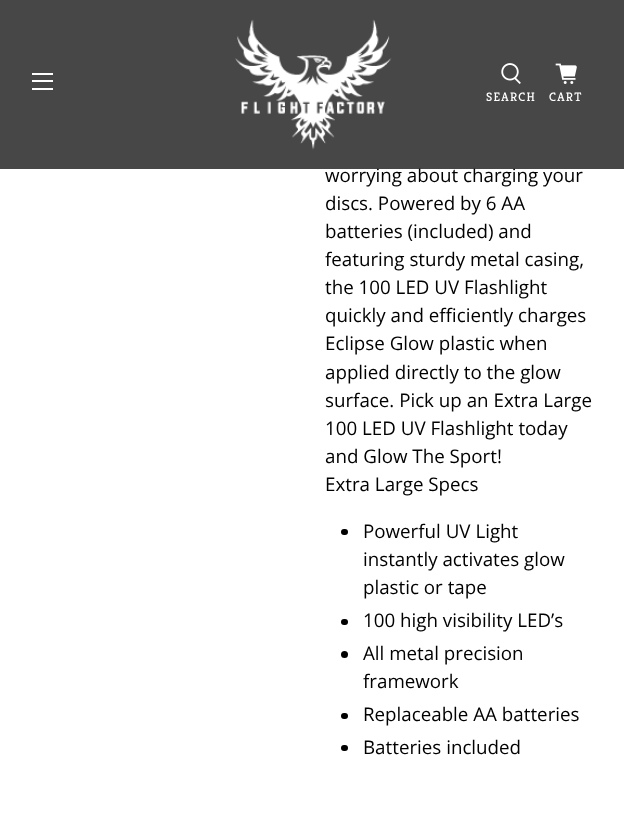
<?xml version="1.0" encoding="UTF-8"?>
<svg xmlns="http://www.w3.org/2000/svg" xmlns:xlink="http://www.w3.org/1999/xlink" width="624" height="820">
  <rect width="100%" height="100%" fill="#ffffff" />
  <rect x="341" y="529" width="7" height="6" rx="3" fill="#000000" />
  <rect x="341" y="619" width="7" height="6" rx="3" fill="#000000" />
  <circle cx="344.5" cy="654.5" r="3.5" fill="#000000" />
  <rect x="341" y="713" width="7" height="6" rx="3" fill="#000000" />
  <rect x="341" y="745" width="7" height="6" rx="3" fill="#000000" />
  <text x="325" y="182" style="font-family: Open Sans; font-size: 18.75px; fill: #000000">worrying about charging your</text>
  <rect width="624" height="169" fill="#333333" fill-opacity="0.9" />
  <image x="555" y="63" width="22" height="21" xlink:href="image3.png" />
  <image x="501" y="63" width="20" height="21" xlink:href="image2.png" />
  <image x="235" y="19" width="157" height="131" xlink:href="image1.png" />
  <rect x="32" y="88" width="21" height="2" fill="#ffffff" />
  <rect x="32" y="80" width="21" height="2" fill="#ffffff" />
  <rect x="32" y="73" width="21" height="2" fill="#ffffff" />
  <text x="549" y="101" style="font-family: Kreon; font-size: 12.25px; letter-spacing: 1.25px; fill: #ffffff">CART</text>
  <text x="486" y="101" style="font-family: Kreon; font-size: 12.25px; letter-spacing: 1.25px; fill: #ffffff">SEARCH</text>
  <text x="325" y="210" style="font-family: Open Sans; font-size: 18.75px; fill: #000000">discs. Powered by 6 AA</text>
  <text x="325" y="238" style="font-family: Open Sans; font-size: 18.75px; fill: #000000">batteries (included) and</text>
  <text x="325" y="266" style="font-family: Open Sans; font-size: 18.75px; fill: #000000">featuring sturdy metal casing,</text>
  <text x="325" y="294" style="font-family: Open Sans; font-size: 18.75px; fill: #000000">the 100 LED UV Flashlight</text>
  <text x="325" y="322" style="font-family: Open Sans; font-size: 18.75px; fill: #000000">quickly and efficiently charges</text>
  <text x="325" y="350" style="font-family: Open Sans; font-size: 18.75px; fill: #000000">Eclipse Glow plastic when</text>
  <text x="325" y="379" style="font-family: Open Sans; font-size: 18.75px; fill: #000000">applied directly to the glow</text>
  <text x="325" y="407" style="font-family: Open Sans; font-size: 18.75px; fill: #000000">surface. Pick up an Extra Large</text>
  <text x="325" y="435" style="font-family: Open Sans; font-size: 18.75px; fill: #000000">100 LED UV Flashlight today</text>
  <text x="325" y="463" style="font-family: Open Sans; font-size: 18.75px; fill: #000000">and Glow The Sport!</text>
  <text x="325" y="491" style="font-family: Open Sans; font-size: 18.75px; fill: #000000">Extra Large Specs</text>
  <text x="363" y="538" style="font-family: Open Sans; font-size: 18.75px; fill: #000000">Powerful UV Light</text>
  <text x="363" y="566" style="font-family: Open Sans; font-size: 18.75px; fill: #000000">instantly activates glow</text>
  <text x="363" y="594" style="font-family: Open Sans; font-size: 18.75px; fill: #000000">plastic or tape</text>
  <text x="363" y="627" style="font-family: Open Sans; font-size: 18.75px; fill: #000000">100 high visibility LED’s</text>
  <text x="363" y="660" style="font-family: Open Sans; font-size: 18.75px; fill: #000000">All metal precision</text>
  <text x="363" y="688" style="font-family: Open Sans; font-size: 18.75px; fill: #000000">framework</text>
  <text x="363" y="721" style="font-family: Open Sans; font-size: 18.75px; fill: #000000">Replaceable AA batteries</text>
  <text x="363" y="754" style="font-family: Open Sans; font-size: 18.75px; fill: #000000">Batteries included</text>
</svg>
